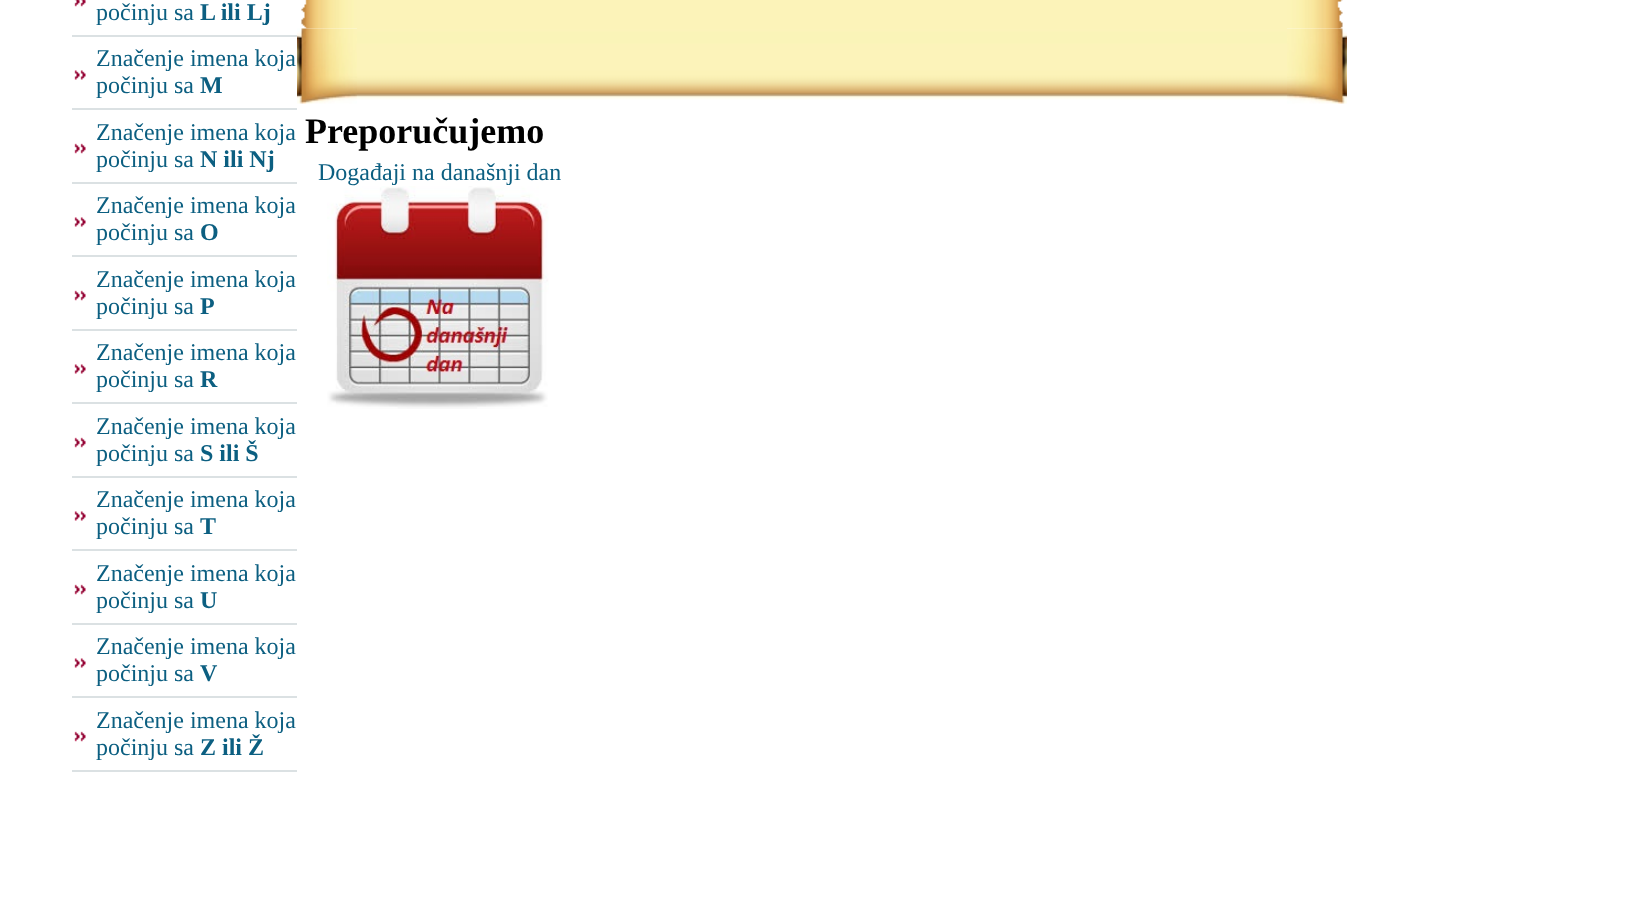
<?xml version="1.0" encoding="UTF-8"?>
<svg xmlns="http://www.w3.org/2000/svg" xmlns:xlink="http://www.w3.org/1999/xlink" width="1646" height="902">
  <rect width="100%" height="100%" fill="#ffffff" />
  <image x="74" y="0" width="12" height="7" xlink:href="image1.png" />
  <rect x="72" y="35" width="225" height="2" fill="#dbe1e3" />
  <image x="74" y="70" width="12" height="10" xlink:href="image2.png" />
  <rect x="72" y="108" width="225" height="2" fill="#dbe1e3" />
  <image x="74" y="143" width="12" height="11" xlink:href="image3.png" />
  <rect x="72" y="182" width="225" height="2" fill="#dbe1e3" />
  <image x="74" y="217" width="12" height="10" xlink:href="image2.png" />
  <rect x="72" y="255" width="225" height="2" fill="#dbe1e3" />
  <image x="74" y="290" width="12" height="11" xlink:href="image3.png" />
  <rect x="72" y="329" width="225" height="2" fill="#dbe1e3" />
  <image x="74" y="364" width="12" height="10" xlink:href="image2.png" />
  <rect x="72" y="402" width="225" height="2" fill="#dbe1e3" />
  <image x="74" y="437" width="12" height="11" xlink:href="image3.png" />
  <rect x="72" y="476" width="225" height="2" fill="#dbe1e3" />
  <image x="74" y="511" width="12" height="10" xlink:href="image2.png" />
  <rect x="72" y="549" width="225" height="2" fill="#dbe1e3" />
  <image x="74" y="584" width="12" height="11" xlink:href="image3.png" />
  <rect x="72" y="623" width="225" height="2" fill="#dbe1e3" />
  <image x="74" y="658" width="12" height="10" xlink:href="image2.png" />
  <rect x="72" y="696" width="225" height="2" fill="#dbe1e3" />
  <image x="74" y="731" width="12" height="11" xlink:href="image3.png" />
  <rect x="72" y="770" width="225" height="2" fill="#dbe1e3" />
  <image x="301" y="0" width="56" height="29" xlink:href="image4.png" />
  <rect x="357" width="930" height="29" fill="#fcf3b9" />
  <image x="1287" y="0" width="56" height="29" xlink:href="image5.png" />
  <image x="297" y="28" width="60" height="76" xlink:href="image6.png" />
  <image x="357" y="29" width="930" height="71" xlink:href="image7.png" />
  <image x="1287" y="28" width="60" height="76" xlink:href="image8.png" />
  <image x="327" y="186" width="222" height="223" xlink:href="image9.png" />
  <text x="96" y="20" style="font-family: Liberation Serif; font-size: 24px; fill: #0c5f81">počinju sa</text>
  <text x="200" y="20" style="font-family: Liberation Serif; font-size: 24px; font-weight: bold; fill: #0c5f81">L ili Lj</text>
  <text x="96" y="66" style="font-family: Liberation Serif; font-size: 24px; fill: #0c5f81">Značenje imena koja</text>
  <text x="96" y="93" style="font-family: Liberation Serif; font-size: 24px; fill: #0c5f81">počinju sa</text>
  <text x="200" y="93" style="font-family: Liberation Serif; font-size: 24px; font-weight: bold; fill: #0c5f81">M</text>
  <text x="96" y="140" style="font-family: Liberation Serif; font-size: 24px; fill: #0c5f81">Značenje imena koja</text>
  <text x="96" y="167" style="font-family: Liberation Serif; font-size: 24px; fill: #0c5f81">počinju sa</text>
  <text x="200" y="167" style="font-family: Liberation Serif; font-size: 24px; font-weight: bold; fill: #0c5f81">N ili Nj</text>
  <text x="96" y="213" style="font-family: Liberation Serif; font-size: 24px; fill: #0c5f81">Značenje imena koja</text>
  <text x="96" y="240" style="font-family: Liberation Serif; font-size: 24px; fill: #0c5f81">počinju sa</text>
  <text x="200" y="240" style="font-family: Liberation Serif; font-size: 24px; font-weight: bold; fill: #0c5f81">O</text>
  <text x="96" y="287" style="font-family: Liberation Serif; font-size: 24px; fill: #0c5f81">Značenje imena koja</text>
  <text x="96" y="314" style="font-family: Liberation Serif; font-size: 24px; fill: #0c5f81">počinju sa</text>
  <text x="200" y="314" style="font-family: Liberation Serif; font-size: 24px; font-weight: bold; fill: #0c5f81">P</text>
  <text x="96" y="360" style="font-family: Liberation Serif; font-size: 24px; fill: #0c5f81">Značenje imena koja</text>
  <text x="96" y="387" style="font-family: Liberation Serif; font-size: 24px; fill: #0c5f81">počinju sa</text>
  <text x="200" y="387" style="font-family: Liberation Serif; font-size: 24px; font-weight: bold; fill: #0c5f81">R</text>
  <text x="96" y="434" style="font-family: Liberation Serif; font-size: 24px; fill: #0c5f81">Značenje imena koja</text>
  <text x="96" y="461" style="font-family: Liberation Serif; font-size: 24px; fill: #0c5f81">počinju sa</text>
  <text x="200" y="461" style="font-family: Liberation Serif; font-size: 24px; font-weight: bold; fill: #0c5f81">S ili Š</text>
  <text x="96" y="507" style="font-family: Liberation Serif; font-size: 24px; fill: #0c5f81">Značenje imena koja</text>
  <text x="96" y="534" style="font-family: Liberation Serif; font-size: 24px; fill: #0c5f81">počinju sa</text>
  <text x="200" y="534" style="font-family: Liberation Serif; font-size: 24px; font-weight: bold; fill: #0c5f81">T</text>
  <text x="96" y="581" style="font-family: Liberation Serif; font-size: 24px; fill: #0c5f81">Značenje imena koja</text>
  <text x="96" y="608" style="font-family: Liberation Serif; font-size: 24px; fill: #0c5f81">počinju sa</text>
  <text x="200" y="608" style="font-family: Liberation Serif; font-size: 24px; font-weight: bold; fill: #0c5f81">U</text>
  <text x="96" y="654" style="font-family: Liberation Serif; font-size: 24px; fill: #0c5f81">Značenje imena koja</text>
  <text x="96" y="681" style="font-family: Liberation Serif; font-size: 24px; fill: #0c5f81">počinju sa</text>
  <text x="200" y="681" style="font-family: Liberation Serif; font-size: 24px; font-weight: bold; fill: #0c5f81">V</text>
  <text x="96" y="728" style="font-family: Liberation Serif; font-size: 24px; fill: #0c5f81">Značenje imena koja</text>
  <text x="96" y="755" style="font-family: Liberation Serif; font-size: 24px; fill: #0c5f81">počinju sa</text>
  <text x="200" y="755" style="font-family: Liberation Serif; font-size: 24px; font-weight: bold; fill: #0c5f81">Z ili Ž</text>
  <text x="305" y="143" style="font-family: Liberation Serif; font-size: 36px; font-weight: bold; fill: #000000">Preporučujemo</text>
  <text x="318" y="180" style="font-family: Liberation Serif; font-size: 24px; fill: #0c5f81">Događaji na današnji dan</text>
</svg>
